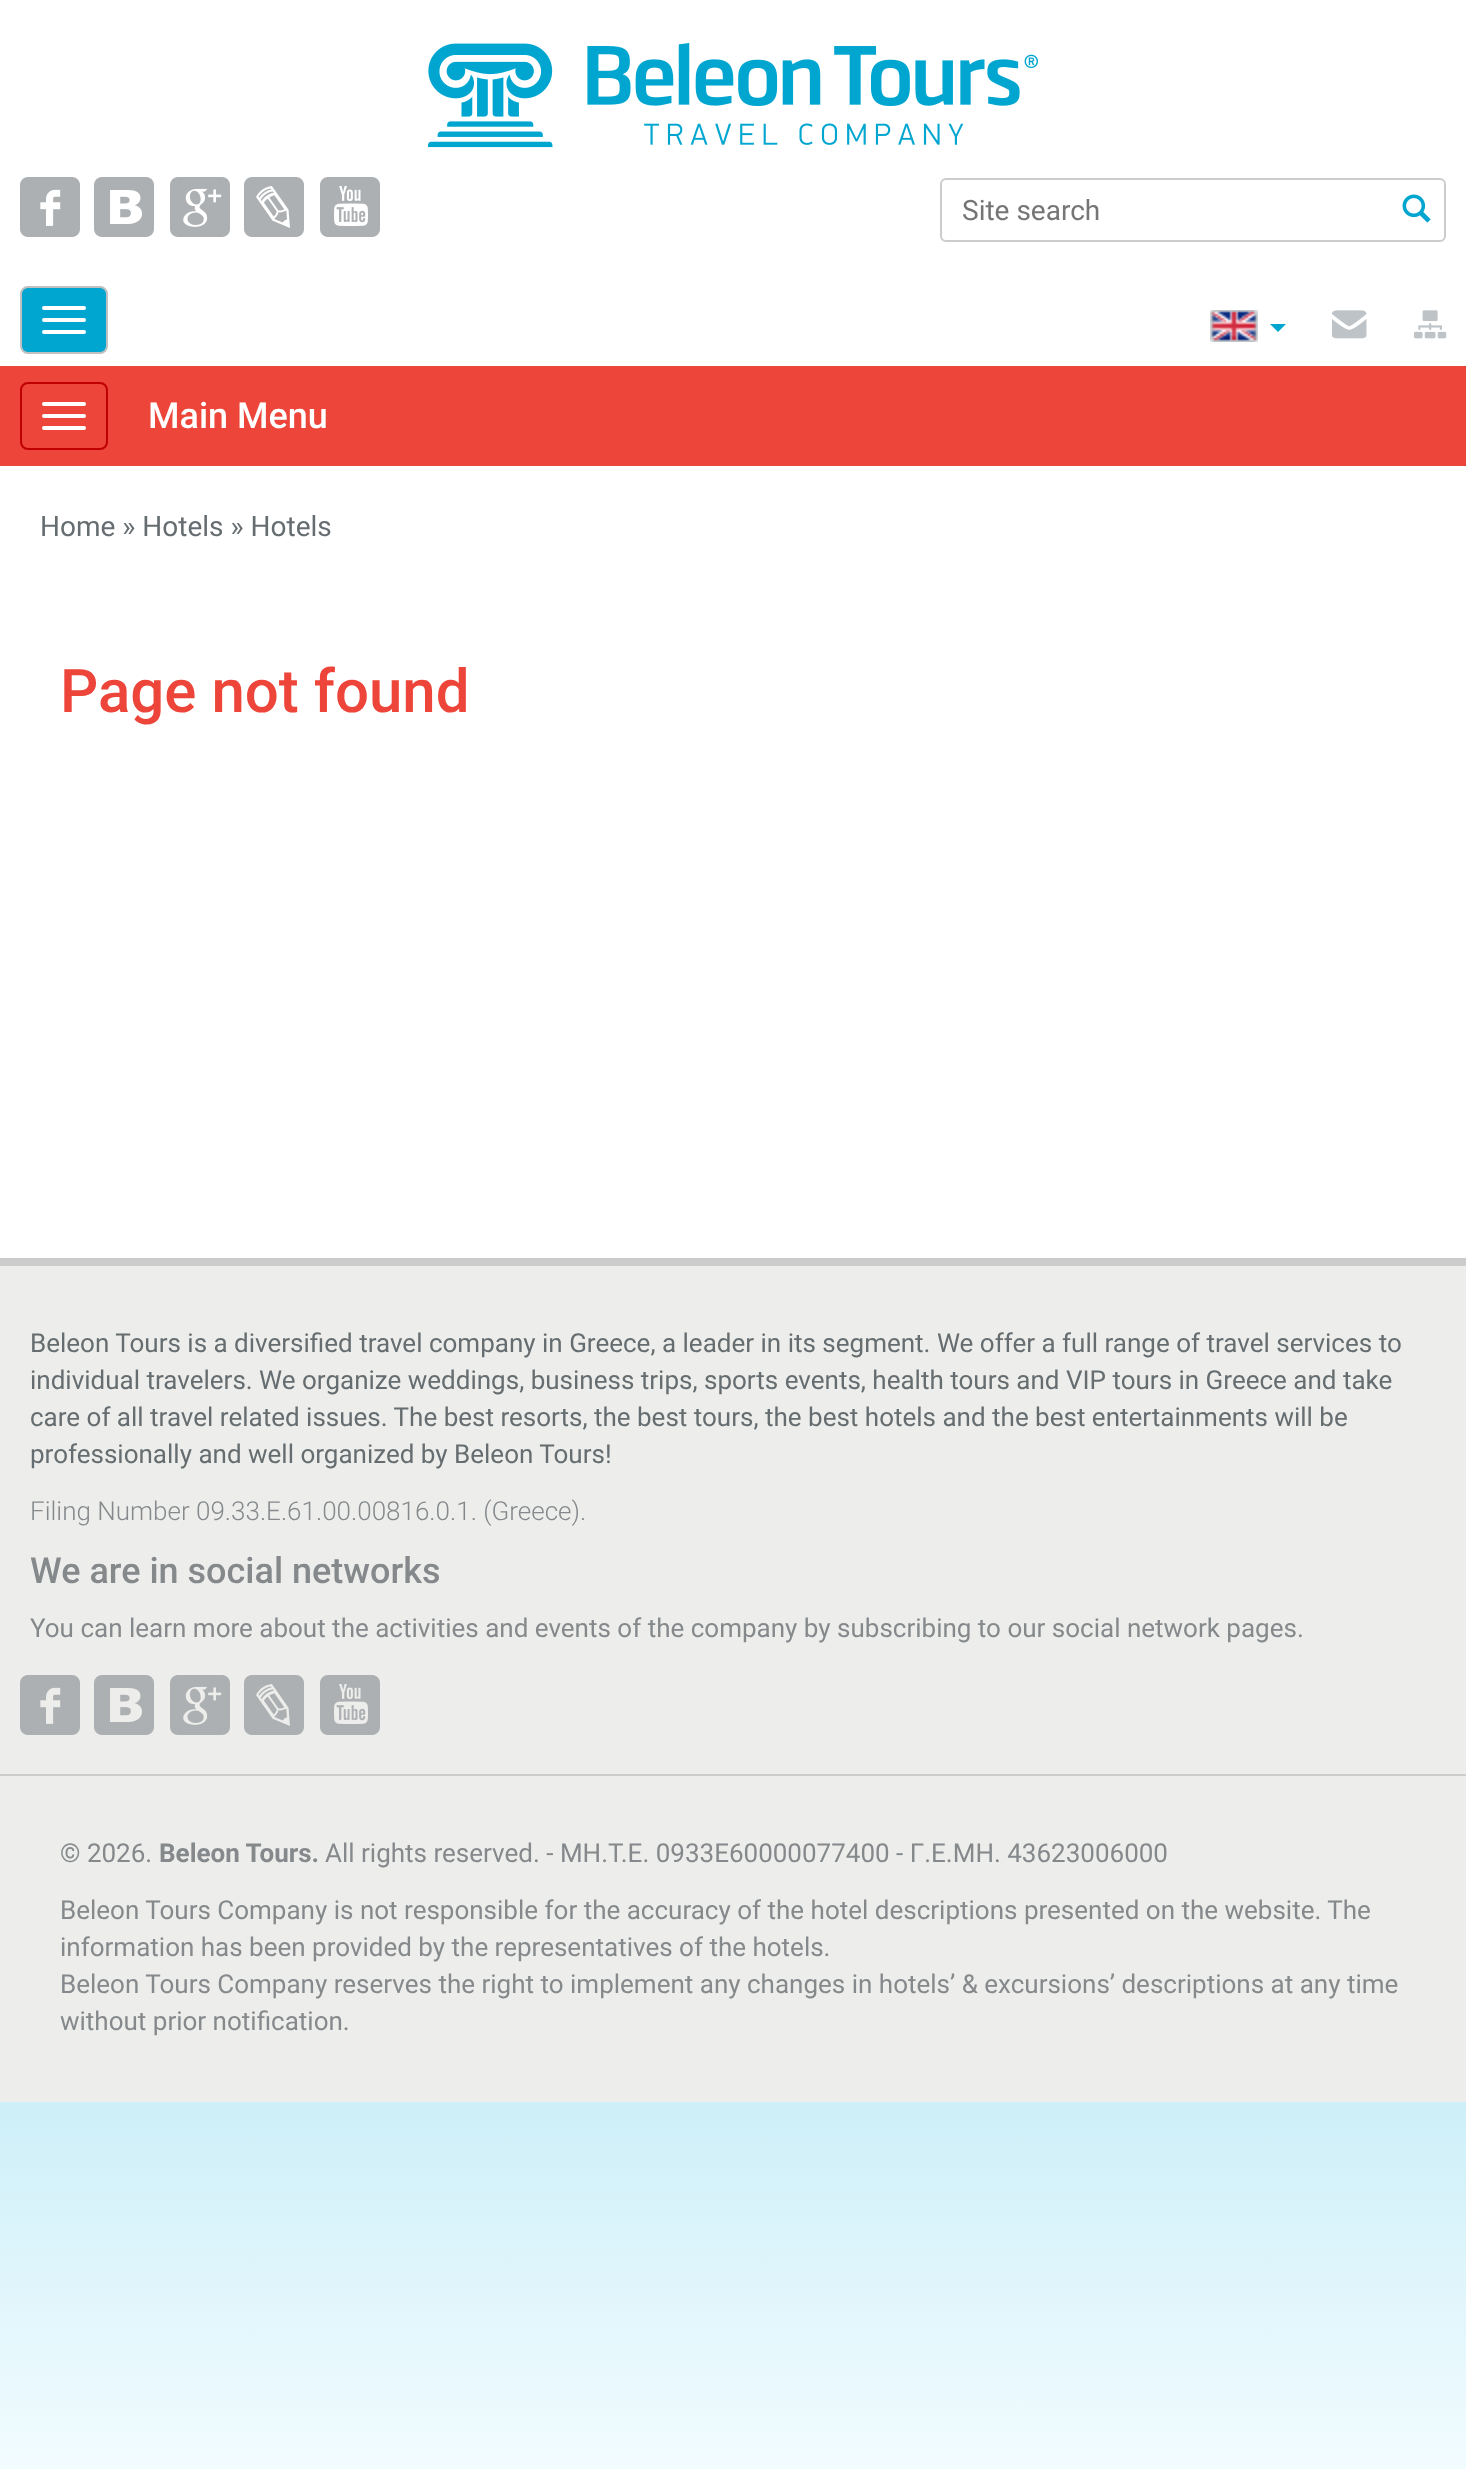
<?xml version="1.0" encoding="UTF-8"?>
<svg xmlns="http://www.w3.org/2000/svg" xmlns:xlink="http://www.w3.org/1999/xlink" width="1466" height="2469">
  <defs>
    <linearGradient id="g1" gradientUnits="userSpaceOnUse" x1="733" y1="0" x2="733" y2="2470"><stop offset="0" stop-color="#00a6d0" /><stop offset="1" stop-color="#f2fcff" /></linearGradient>
  </defs>
  <rect width="100%" height="100%" fill="#ffffff" />
  <rect y="2102" width="1466" height="367" fill="url(#g1)" />
  <image x="428" y="43" width="610" height="105" xlink:href="image1.png" />
  <image x="20" y="177" width="60" height="60" xlink:href="image2.png" />
  <image x="94" y="177" width="60" height="60" xlink:href="image3.png" />
  <image x="170" y="177" width="60" height="60" xlink:href="image4.png" />
  <image x="244" y="177" width="60" height="60" xlink:href="image5.png" />
  <image x="320" y="177" width="60" height="60" xlink:href="image6.png" />
  <rect x="941" y="179" width="504" height="62" rx="5" fill="none" stroke="#cccccc" stroke-width="2" />
  <image x="1402" y="194" width="29" height="29" xlink:href="image7.png" />
  <rect x="21" y="287" width="86" height="66" rx="7" fill="#00a6d0" stroke="#c0c0c0" stroke-width="2" />
  <rect x="42" y="306" width="44" height="4" rx="2" fill="#ffffff" />
  <rect x="42" y="318" width="44" height="4" rx="2" fill="#ffffff" />
  <rect x="42" y="330" width="44" height="4" rx="2" fill="#ffffff" />
  <image x="1210" y="310" width="48" height="32" xlink:href="image8.png" />
  <path d="M 1270 324 h 16 l -8 8 z" fill="#00a6d0" />
  <image x="1332" y="310" width="35" height="29" xlink:href="image9.png" />
  <image x="1414" y="310" width="33" height="29" xlink:href="image10.png" />
  <rect y="366" width="1466" height="100" fill="#ed4539" />
  <rect x="21" y="383" width="86" height="66" rx="7" fill="none" stroke="#c00000" stroke-width="2" />
  <rect x="42" y="402" width="44" height="4" rx="2" fill="#ffffff" />
  <rect x="42" y="414" width="44" height="4" rx="2" fill="#ffffff" />
  <rect x="42" y="426" width="44" height="4" rx="2" fill="#ffffff" />
  <rect y="1258" width="1466" height="8" fill="#cccccc" />
  <rect y="1266" width="1466" height="508" fill="#edeeeb" />
  <image x="20" y="1675" width="60" height="60" xlink:href="image11.png" />
  <image x="94" y="1675" width="60" height="60" xlink:href="image12.png" />
  <image x="170" y="1675" width="60" height="60" xlink:href="image13.png" />
  <image x="244" y="1675" width="60" height="60" xlink:href="image14.png" />
  <image x="320" y="1675" width="60" height="60" xlink:href="image15.png" />
  <rect y="1776" width="1466" height="326" fill="#edeeeb" />
  <rect y="1774" width="1466" height="2" fill="#cccccc" />
  <text x="962" y="220" style="font-family: Roboto; font-size: 28px; fill: #757575">Site search</text>
  <text x="148" y="428" style="font-family: Roboto; font-size: 36px; font-weight: 500; fill: #ffffff">Main Menu</text>
  <text x="40" y="536" style="font-family: Roboto; font-size: 28px; fill: #666d70">Home » Hotels » Hotels</text>
  <text x="60" y="712" style="font-family: Roboto; font-size: 60px; font-weight: 500; fill: #ed4539">Page not found</text>
  <text x="30" y="1352" style="font-family: Roboto; font-size: 26px; fill: #666d70">Beleon Tours is a diversified travel company in Greece, a leader in its segment. We offer a full range of travel services to</text>
  <text x="30" y="1389" style="font-family: Roboto; font-size: 26px; fill: #666d70">individual travelers. We organize weddings, business trips, sports events, health tours and VIP tours in Greece and take</text>
  <text x="30" y="1426" style="font-family: Roboto; font-size: 26px; fill: #666d70">care of all travel related issues. The best resorts, the best tours, the best hotels and the best entertainments will be</text>
  <text x="30" y="1463" style="font-family: Roboto; font-size: 26px; fill: #666d70">professionally and well organized by Beleon Tours!</text>
  <text x="30" y="1520" style="font-family: Roboto; font-size: 26px; font-weight: 300; fill: #85898c">Filing Number 09.33.Ε.61.00.00816.0.1. (Greece).</text>
  <text x="30" y="1583" style="font-family: Roboto; font-size: 36px; font-weight: 500; fill: #85898c">We are in social networks</text>
  <text x="30" y="1637" style="font-family: Roboto; font-size: 26px; fill: #85898c">You can learn more about the activities and events of the company by subscribing to our social network pages.</text>
  <text x="60" y="1862" style="font-family: Roboto; font-size: 26px; fill: #85898c">© 2026.</text>
  <text x="159" y="1862" style="font-family: Roboto; font-size: 26px; font-weight: bold; fill: #85898c">Beleon Tours.</text>
  <text x="325" y="1862" style="font-family: Roboto; font-size: 26px; fill: #85898c">All rights reserved. - MH.T.E. 0933Ε60000077400 - Γ.Ε.ΜΗ. 43623006000</text>
  <text x="60" y="1919" style="font-family: Roboto; font-size: 26px; fill: #85898c">Beleon Tours Company is not responsible for the accuracy of the hotel descriptions presented on the website. The</text>
  <text x="60" y="1956" style="font-family: Roboto; font-size: 26px; fill: #85898c">information has been provided by the representatives of the hotels.</text>
  <text x="60" y="1993" style="font-family: Roboto; font-size: 26px; fill: #85898c">Beleon Tours Company reserves the right to implement any changes in hotels’ &amp; excursions’ descriptions at any time</text>
  <text x="60" y="2030" style="font-family: Roboto; font-size: 26px; fill: #85898c">without prior notification.</text>
</svg>
